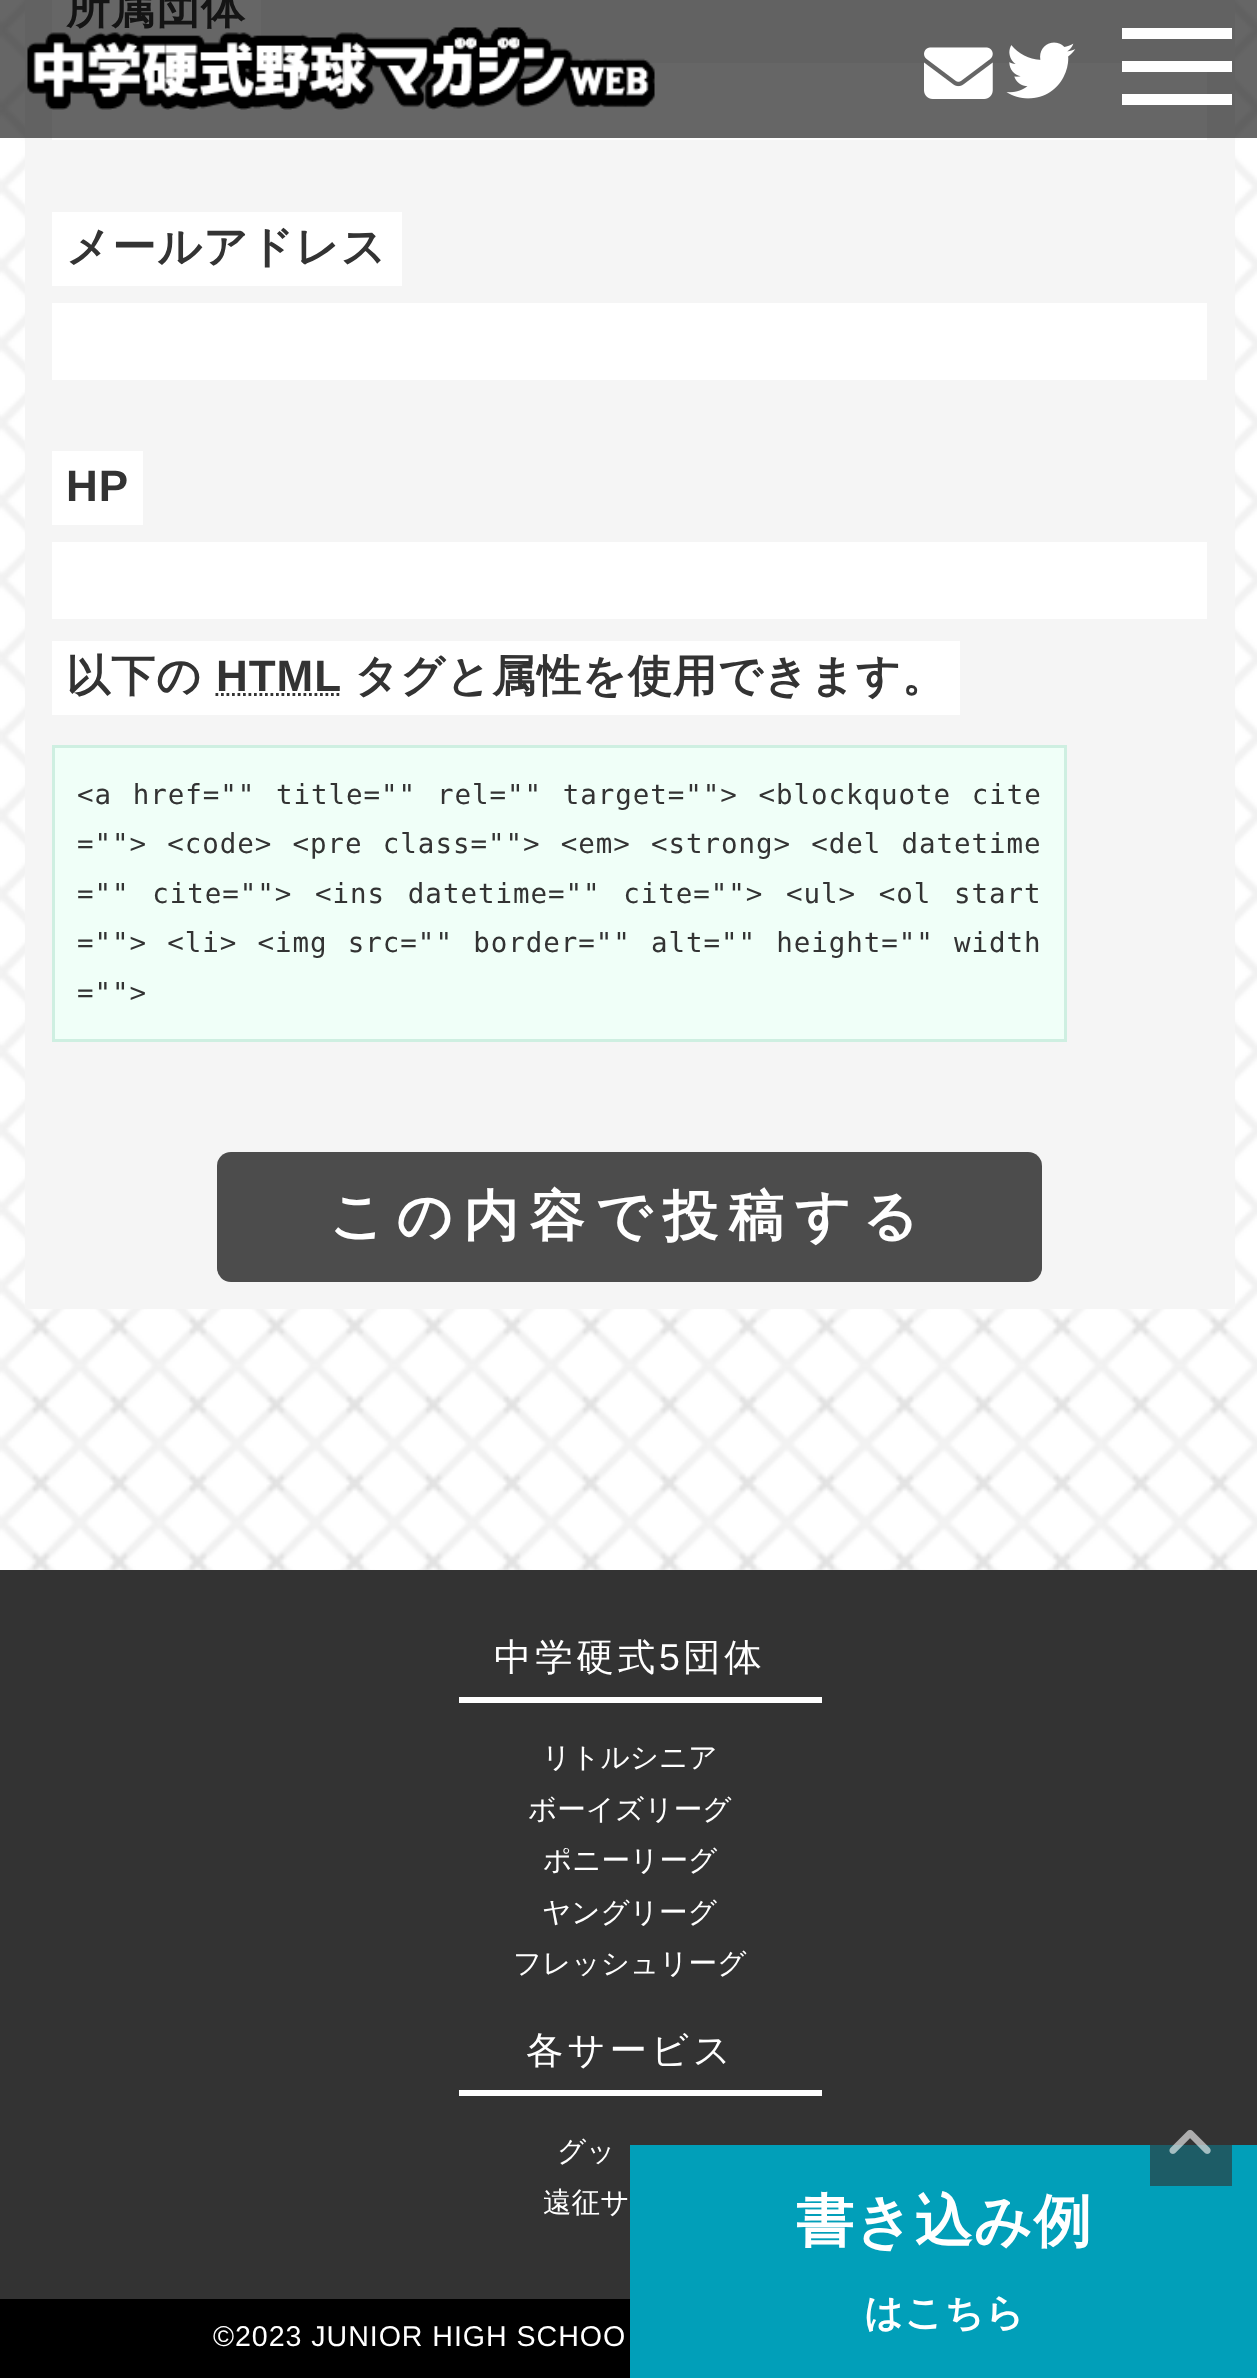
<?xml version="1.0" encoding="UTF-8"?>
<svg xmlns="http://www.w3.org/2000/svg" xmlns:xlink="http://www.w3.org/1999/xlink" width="1257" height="2378">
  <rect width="100%" height="100%" fill="#333333" />
  <image x="0" y="0" width="1257" height="1570" xlink:href="image4.png" />
  <rect x="25" width="1210" height="1309" fill="#f5f5f5" />
  <rect x="52" width="209" height="46" fill="#ffffff" />
  <rect x="52" y="63" width="1155" height="77" fill="#ffffff" />
  <rect x="52" y="212" width="350" height="74" fill="#ffffff" />
  <rect x="52" y="303" width="1155" height="77" fill="#ffffff" />
  <rect x="52" y="451" width="91" height="74" fill="#ffffff" />
  <rect x="52" y="542" width="1155" height="77" fill="#ffffff" />
  <rect x="52" y="641" width="908" height="74" fill="#ffffff" />
  <path d="M 215.5 694.5 h 125.5" fill="none" stroke="#333333" stroke-width="2.8" stroke-dasharray="2.75 2.75" />
  <rect x="53.5" y="746.5" width="1012" height="294" fill="#f0fff8" stroke="#ceefe1" stroke-width="3" />
  <rect x="217" y="1152" width="825" height="130" rx="14" fill="#4c4c4c" />
  <rect x="630" y="2145" width="627" height="233" fill="#019fb9" />
  <rect x="1150" y="2145" width="82" height="41" fill="#1d5c66" />
  <rect x="459" y="1697" width="363" height="6" fill="#ffffff" />
  <rect x="459" y="2090" width="363" height="6" fill="#ffffff" />
  <rect y="2299" width="630" height="79" fill="#000000" />
  <image x="1169" y="2129" width="42" height="25" xlink:href="image5.png" />
  <text x="66" y="23" style="font-family: WenQuanYi Zen Hei; font-size: 44px; font-weight: bold; letter-spacing: 0.95px; fill: #333333">所属団体</text>
  <rect width="1257" height="138" fill="#000000" fill-opacity="0.6" />
  <rect x="1122" y="94" width="110" height="11" fill="#ffffff" />
  <rect x="1122" y="61" width="110" height="11" fill="#ffffff" />
  <rect x="1122" y="28" width="110" height="11" fill="#ffffff" />
  <image x="924" y="47" width="69" height="52" xlink:href="image2.png" />
  <image x="1006" y="42" width="70" height="57" xlink:href="image3.png" />
  <image x="27" y="27" width="628" height="83" xlink:href="image1.png" />
  <text x="66" y="262" style="font-family: WenQuanYi Zen Hei; font-size: 44px; font-weight: bold; letter-spacing: 0.95px; fill: #333333">メールアドレス</text>
  <text x="66" y="501" style="font-family: Liberation Sans; font-size: 44px; font-weight: bold; letter-spacing: 0.95px; fill: #333333">HP</text>
  <text x="66" y="691" style="font-family: WenQuanYi Zen Hei; font-size: 44px; font-weight: bold; letter-spacing: 0.95px; fill: #333333">以下の</text>
  <text x="216" y="691" style="font-family: Liberation Sans; font-size: 44px; font-weight: bold; letter-spacing: 0.95px; fill: #333333">HTML</text>
  <text x="354" y="691" style="font-family: WenQuanYi Zen Hei; font-size: 44px; font-weight: bold; letter-spacing: 0.95px; fill: #333333">タグと属性を使用できます。</text>
  <text x="77" y="804" word-spacing="3.25" style="font-family: DejaVu Sans Mono; font-size: 27.5px; letter-spacing: 0.95px; fill: #333333">&lt;a href="" title="" rel="" target=""&gt; &lt;blockquote cite</text>
  <text x="77" y="853" word-spacing="2.75" style="font-family: DejaVu Sans Mono; font-size: 27.5px; letter-spacing: 0.95px; fill: #333333">=""&gt; &lt;code&gt; &lt;pre class=""&gt; &lt;em&gt; &lt;strong&gt; &lt;del datetime</text>
  <text x="77" y="903" word-spacing="5.25" style="font-family: DejaVu Sans Mono; font-size: 27.5px; letter-spacing: 0.95px; fill: #333333">="" cite=""&gt; &lt;ins datetime="" cite=""&gt; &lt;ul&gt; &lt;ol start</text>
  <text x="77" y="952" word-spacing="2.75" style="font-family: DejaVu Sans Mono; font-size: 27.5px; letter-spacing: 0.95px; fill: #333333">=""&gt; &lt;li&gt; &lt;img src="" border="" alt="" height="" width</text>
  <text x="77" y="1002" style="font-family: DejaVu Sans Mono; font-size: 27.5px; letter-spacing: 0.95px; fill: #333333">=""&gt;</text>
  <text x="329" y="1235" style="font-family: WenQuanYi Zen Hei; font-size: 55px; font-weight: bold; letter-spacing: 11px; fill: #ffffff">この内容で投稿する</text>
  <text x="796" y="2241" style="font-family: WenQuanYi Zen Hei; font-size: 57.75px; font-weight: bold; letter-spacing: 0.95px; fill: #ffffff">書き込み例</text>
  <text x="864" y="2326" style="font-family: WenQuanYi Zen Hei; font-size: 38.5px; font-weight: bold; letter-spacing: 0.95px; fill: #ffffff">はこちら</text>
  <text x="494" y="1670" style="font-family: WenQuanYi Zen Hei; font-size: 37.5px; font-weight: 500; letter-spacing: 3.75px; fill: #ffffff">中学硬式</text>
  <text x="659" y="1670" style="font-family: Liberation Sans; font-size: 37.5px; letter-spacing: 3.75px; fill: #ffffff">5</text>
  <text x="683" y="1670" style="font-family: WenQuanYi Zen Hei; font-size: 37.5px; font-weight: 500; letter-spacing: 3.75px; fill: #ffffff">団体</text>
  <text x="542" y="1767" style="font-family: WenQuanYi Zen Hei; font-size: 28.6px; font-weight: 500; fill: #ffffff">リトルシニア</text>
  <text x="528" y="1819" style="font-family: WenQuanYi Zen Hei; font-size: 28.6px; font-weight: 500; fill: #ffffff">ボーイズリーグ</text>
  <text x="543" y="1870" style="font-family: WenQuanYi Zen Hei; font-size: 28.6px; font-weight: 500; fill: #ffffff">ポニーリーグ</text>
  <text x="542" y="1922" style="font-family: WenQuanYi Zen Hei; font-size: 28.6px; font-weight: 500; fill: #ffffff">ヤングリーグ</text>
  <text x="513" y="1973" style="font-family: WenQuanYi Zen Hei; font-size: 28.6px; font-weight: 500; fill: #ffffff">フレッシュリーグ</text>
  <text x="526" y="2063" style="font-family: WenQuanYi Zen Hei; font-size: 37.5px; font-weight: 500; letter-spacing: 3.75px; fill: #ffffff">各サービス</text>
  <text x="557" y="2161" style="font-family: WenQuanYi Zen Hei; font-size: 28.6px; font-weight: 500; fill: #ffffff">グッ</text>
  <text x="543" y="2212" style="font-family: WenQuanYi Zen Hei; font-size: 28.6px; font-weight: 500; fill: #ffffff">遠征サ</text>
  <text x="213" y="2346" style="font-family: Liberation Sans; font-size: 28.6px; letter-spacing: 0.95px; fill: #ffffff">©2023 JUNIOR HIGH SCHOO</text>
</svg>
